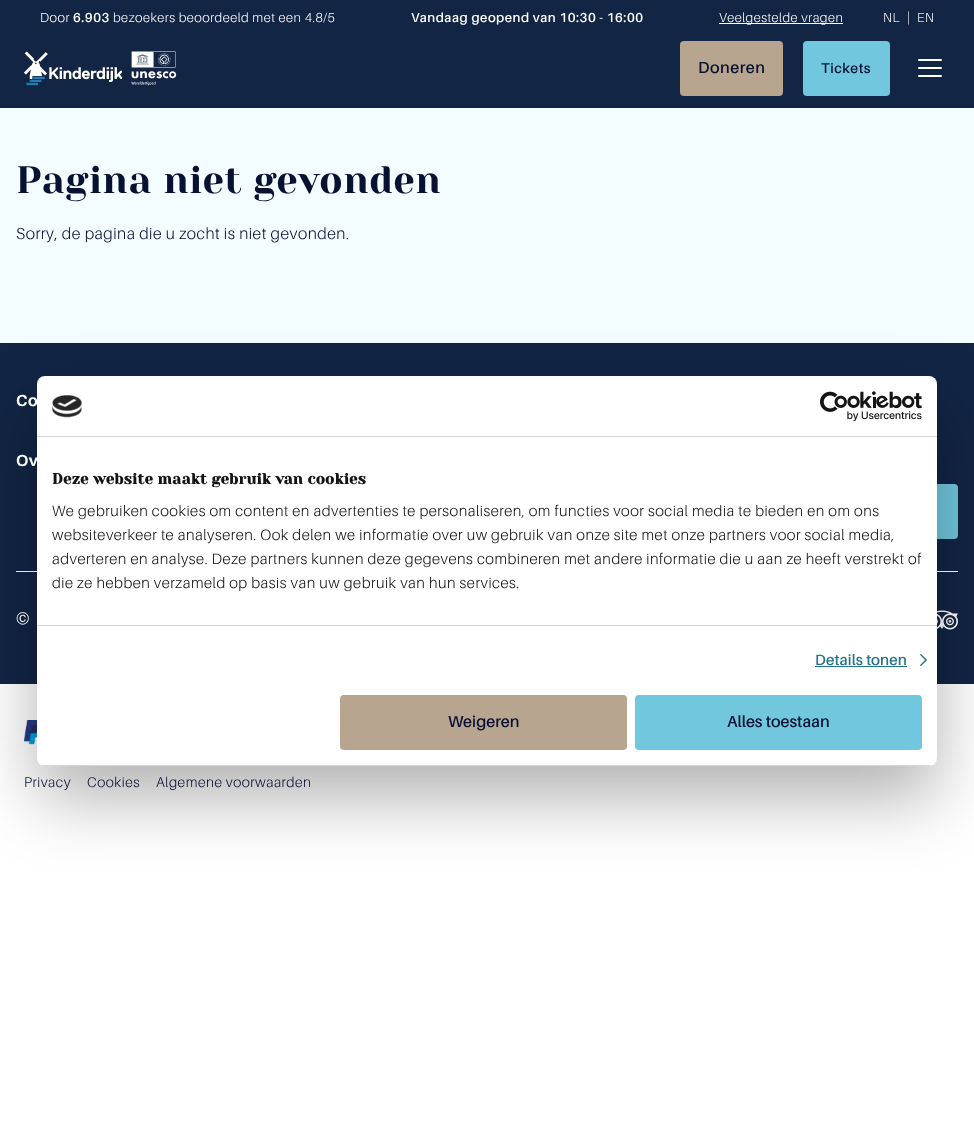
<?xml version="1.0" encoding="UTF-8"?>
<svg xmlns="http://www.w3.org/2000/svg" xmlns:xlink="http://www.w3.org/1999/xlink" width="974" height="1142">
  <defs>
    <clipPath id="clip1"><rect x="37" y="376" width="900" height="390" rx="8" /></clipPath>
  </defs>
  <rect width="100%" height="100%" fill="#ffffff" />
  <rect width="974" height="108" fill="#122545" />
  <rect x="719" y="23" width="124" height="1" fill="#ffffff" />
  <image x="884" y="13" width="16" height="9" xlink:href="image1.png" />
  <image x="918" y="13" width="15" height="9" xlink:href="image2.png" />
  <image x="24" y="51" width="153" height="35" xlink:href="image3.png" />
  <rect x="680" y="41" width="103" height="55" rx="4" fill="#b7a590" />
  <rect x="803" y="41" width="87" height="55" rx="4" fill="#71c7de" />
  <rect x="918" y="59" width="24" height="2" rx="1" fill="#ffffff" />
  <rect x="918" y="67" width="24" height="2" rx="1" fill="#ffffff" />
  <rect x="918" y="75" width="24" height="2" rx="1" fill="#ffffff" />
  <rect y="108" width="974" height="235" fill="#f3fcff" />
  <rect y="343" width="974" height="341" fill="#122545" />
  <rect x="758" y="484" width="200" height="55" rx="4" fill="#71c7de" />
  <rect x="16" y="571" width="942" height="1" fill="#ffffff" />
  <image x="937" y="610" width="21" height="20" xlink:href="image4.png" />
  <image x="24" y="720" width="13" height="25" xlink:href="image5.png" />
  <rect x="37" y="408" width="900" height="390" rx="8" fill="#000000" fill-opacity="0.3" filter="blur(34px)" />
  <rect x="37" y="376" width="900" height="390" rx="8" fill="#ffffff" />
  <rect x="37" y="436" width="900" height="1" fill="#d6d6d6" />
  <image x="52" y="395" width="30" height="23" xlink:href="image6.png" />
  <image x="820" y="391" width="102" height="30" xlink:href="image7.png" />
  <rect x="37" y="625" width="900" height="1" fill="#d6d6d6" />
  <rect x="815" y="666" width="92" height="1" fill="#23748c" />
  <image x="920" y="654" width="7" height="12" xlink:href="image8.png" />
  <g clip-path="url(#clip1)">
    <rect x="37" y="765" width="900" height="1" fill="#d6d6d6" />
  </g>
  <rect x="340" y="695" width="287" height="55" rx="4" fill="#b7a590" />
  <rect x="635" y="695" width="287" height="55" rx="4" fill="#71c7de" />
  <text x="40" y="22" style="font-family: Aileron; font-size: 13px; font-weight: 300; letter-spacing: 0.5px; fill: #ffffff">Door</text>
  <text x="73" y="22" style="font-family: Aileron; font-size: 13px; font-weight: 600; letter-spacing: 0.5px; fill: #ffffff">6.903</text>
  <text x="113" y="22" style="font-family: Aileron; font-size: 13px; font-weight: 300; letter-spacing: 0.5px; fill: #ffffff">bezoekers beoordeeld met een 4.8/5</text>
  <text x="411" y="22" style="font-family: Aileron; font-size: 13px; font-weight: 600; letter-spacing: 0.5px; fill: #ffffff">Vandaag geopend van 10:30 - 16:00</text>
  <text x="719" y="22" style="font-family: Aileron; font-size: 13px; font-weight: 300; letter-spacing: 0.5px; fill: #ffffff">Veelgestelde vragen</text>
  <text x="907" y="22" style="font-family: Aileron; font-size: 13px; font-weight: 300; letter-spacing: 0.5px; fill: #ffffff">|</text>
  <text x="698" y="73" style="font-family: Aileron; font-size: 16px; font-weight: 600; letter-spacing: 0.5px; fill: #071132">Doneren</text>
  <text x="821" y="73" style="font-family: Aileron; font-size: 14px; font-weight: 600; letter-spacing: 0.5px; fill: #071132">Tickets</text>
  <text x="16" y="193" style="font-family: Yeseva One; font-size: 38.25px; letter-spacing: 0.5px; fill: #071132">Pagina niet gevonden</text>
  <text x="16" y="239" style="font-family: Aileron; font-size: 16px; font-weight: 300; letter-spacing: 0.5px; fill: #071132">Sorry, de pagina die u zocht is niet gevonden.</text>
  <text x="16" y="406" style="font-family: Aileron; font-size: 16px; font-weight: bold; letter-spacing: 0.5px; fill: #ffffff">Co</text>
  <text x="16" y="466" style="font-family: Aileron; font-size: 16px; font-weight: bold; letter-spacing: 0.5px; fill: #ffffff">Ov</text>
  <text x="16" y="624" style="font-family: Aileron; font-size: 16px; font-weight: 300; letter-spacing: 0.5px; fill: #ffffff">©</text>
  <text x="24" y="787" style="font-family: Aileron; font-size: 14px; font-weight: 300; letter-spacing: 0.5px; fill: #071132">Privacy</text>
  <text x="87" y="787" style="font-family: Aileron; font-size: 14px; font-weight: 300; letter-spacing: 0.5px; fill: #071132">Cookies</text>
  <text x="156" y="787" style="font-family: Aileron; font-size: 14px; font-weight: 300; letter-spacing: 0.5px; fill: #071132">Algemene voorwaarden</text>
  <text x="52" y="484" style="font-family: Yeseva One; font-size: 15px; font-weight: bold; letter-spacing: 0.25px; fill: #141414">Deze website maakt gebruik van cookies</text>
  <text x="52" y="516" style="font-family: Aileron; font-size: 15px; font-weight: 300; letter-spacing: 0.5px; fill: #141414">We gebruiken cookies om content en advertenties te personaliseren, om functies voor social media te bieden en om ons</text>
  <text x="52" y="540" style="font-family: Aileron; font-size: 15px; font-weight: 300; letter-spacing: 0.5px; fill: #141414">websiteverkeer te analyseren. Ook delen we informatie over uw gebruik van onze site met onze partners voor social media,</text>
  <text x="52" y="564" style="font-family: Aileron; font-size: 15px; font-weight: 300; letter-spacing: 0.5px; fill: #141414">adverteren en analyse. Deze partners kunnen deze gegevens combineren met andere informatie die u aan ze heeft verstrekt of</text>
  <text x="52" y="588" style="font-family: Aileron; font-size: 15px; font-weight: 300; letter-spacing: 0.5px; fill: #141414">die ze hebben verzameld op basis van uw gebruik van hun services.</text>
  <text x="815" y="665" style="font-family: Aileron; font-size: 15px; font-weight: 600; letter-spacing: 0.1px; fill: #23748c">Details tonen</text>
  <text x="448" y="727" style="font-family: Aileron; font-size: 16px; font-weight: 600; fill: #071132">Weigeren</text>
  <text x="727" y="727" style="font-family: Aileron; font-size: 16px; font-weight: 600; fill: #071132">Alles toestaan</text>
</svg>
